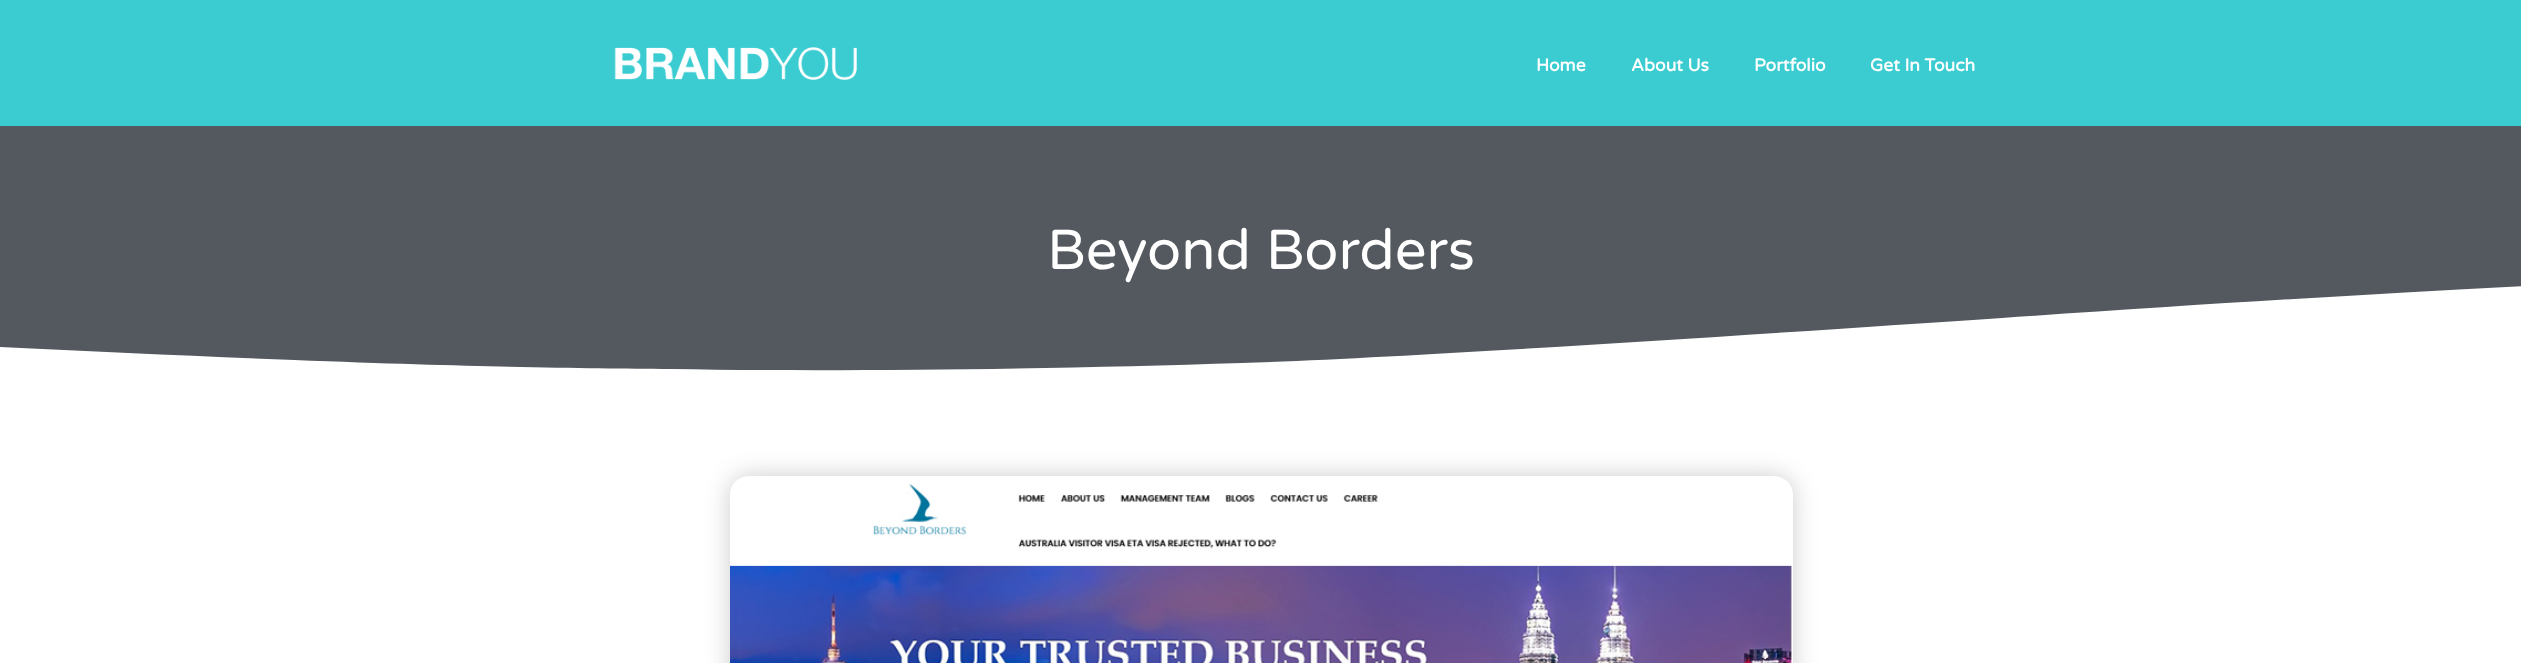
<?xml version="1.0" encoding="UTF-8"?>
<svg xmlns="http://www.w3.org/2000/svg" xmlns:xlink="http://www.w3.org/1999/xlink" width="2521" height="663">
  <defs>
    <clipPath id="clip1"><path d="M 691 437 h 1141 v 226 h -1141 z m 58 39 h 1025 c 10.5 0 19 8.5 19 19 v 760 c 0 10.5 -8.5 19 -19 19 h -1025 c -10.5 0 -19 -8.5 -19 -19 v -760 c 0 -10.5 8.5 -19 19 -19 z" clip-rule="evenodd" /></clipPath>
  </defs>
  <rect width="100%" height="100%" fill="#ffffff" />
  <rect width="2521" height="126" fill="#3accd1" />
  <image x="614" y="47" width="243" height="33" xlink:href="image1.png" />
  <rect y="126" width="2521" height="245" fill="#54595f" />
  <path d="M 670 369 c 171 3 390 0 572 -6 c 178 -6 536 -30 760 -45 c 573 -40 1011 -56 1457 -62 c 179 -3 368 -4 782 3 c 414 8 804 32 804 32 v 87 h -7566 v -38 c 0 0 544 -41 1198 -38 c 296 0 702 8 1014 28 c 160 10 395 22 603 30 c 205 8 298 8 376 9 z" fill="#ffffff" />
  <g clip-path="url(#clip1)">
    <rect x="730" y="476" width="1063" height="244" rx="19" fill="#000000" fill-opacity="0.2" filter="blur(12.5px)" />
  </g>
  <image x="730" y="479" width="1062" height="184" xlink:href="image2.png" />
  <text x="1536" y="71" style="font-family: Varela Round; font-size: 17.5px; font-weight: bold; fill: #ffffff">Home</text>
  <text x="1631" y="71" style="font-family: Varela Round; font-size: 17.5px; font-weight: bold; fill: #ffffff">About Us</text>
  <text x="1754" y="71" style="font-family: Varela Round; font-size: 17.5px; font-weight: bold; fill: #ffffff">Portfolio</text>
  <text x="1870" y="71" style="font-family: Varela Round; font-size: 17.5px; font-weight: bold; fill: #ffffff">Get In Touch</text>
  <text x="1047" y="269" style="font-family: Varela Round; font-size: 56.25px; fill: #ffffff">Beyond Borders</text>
</svg>
